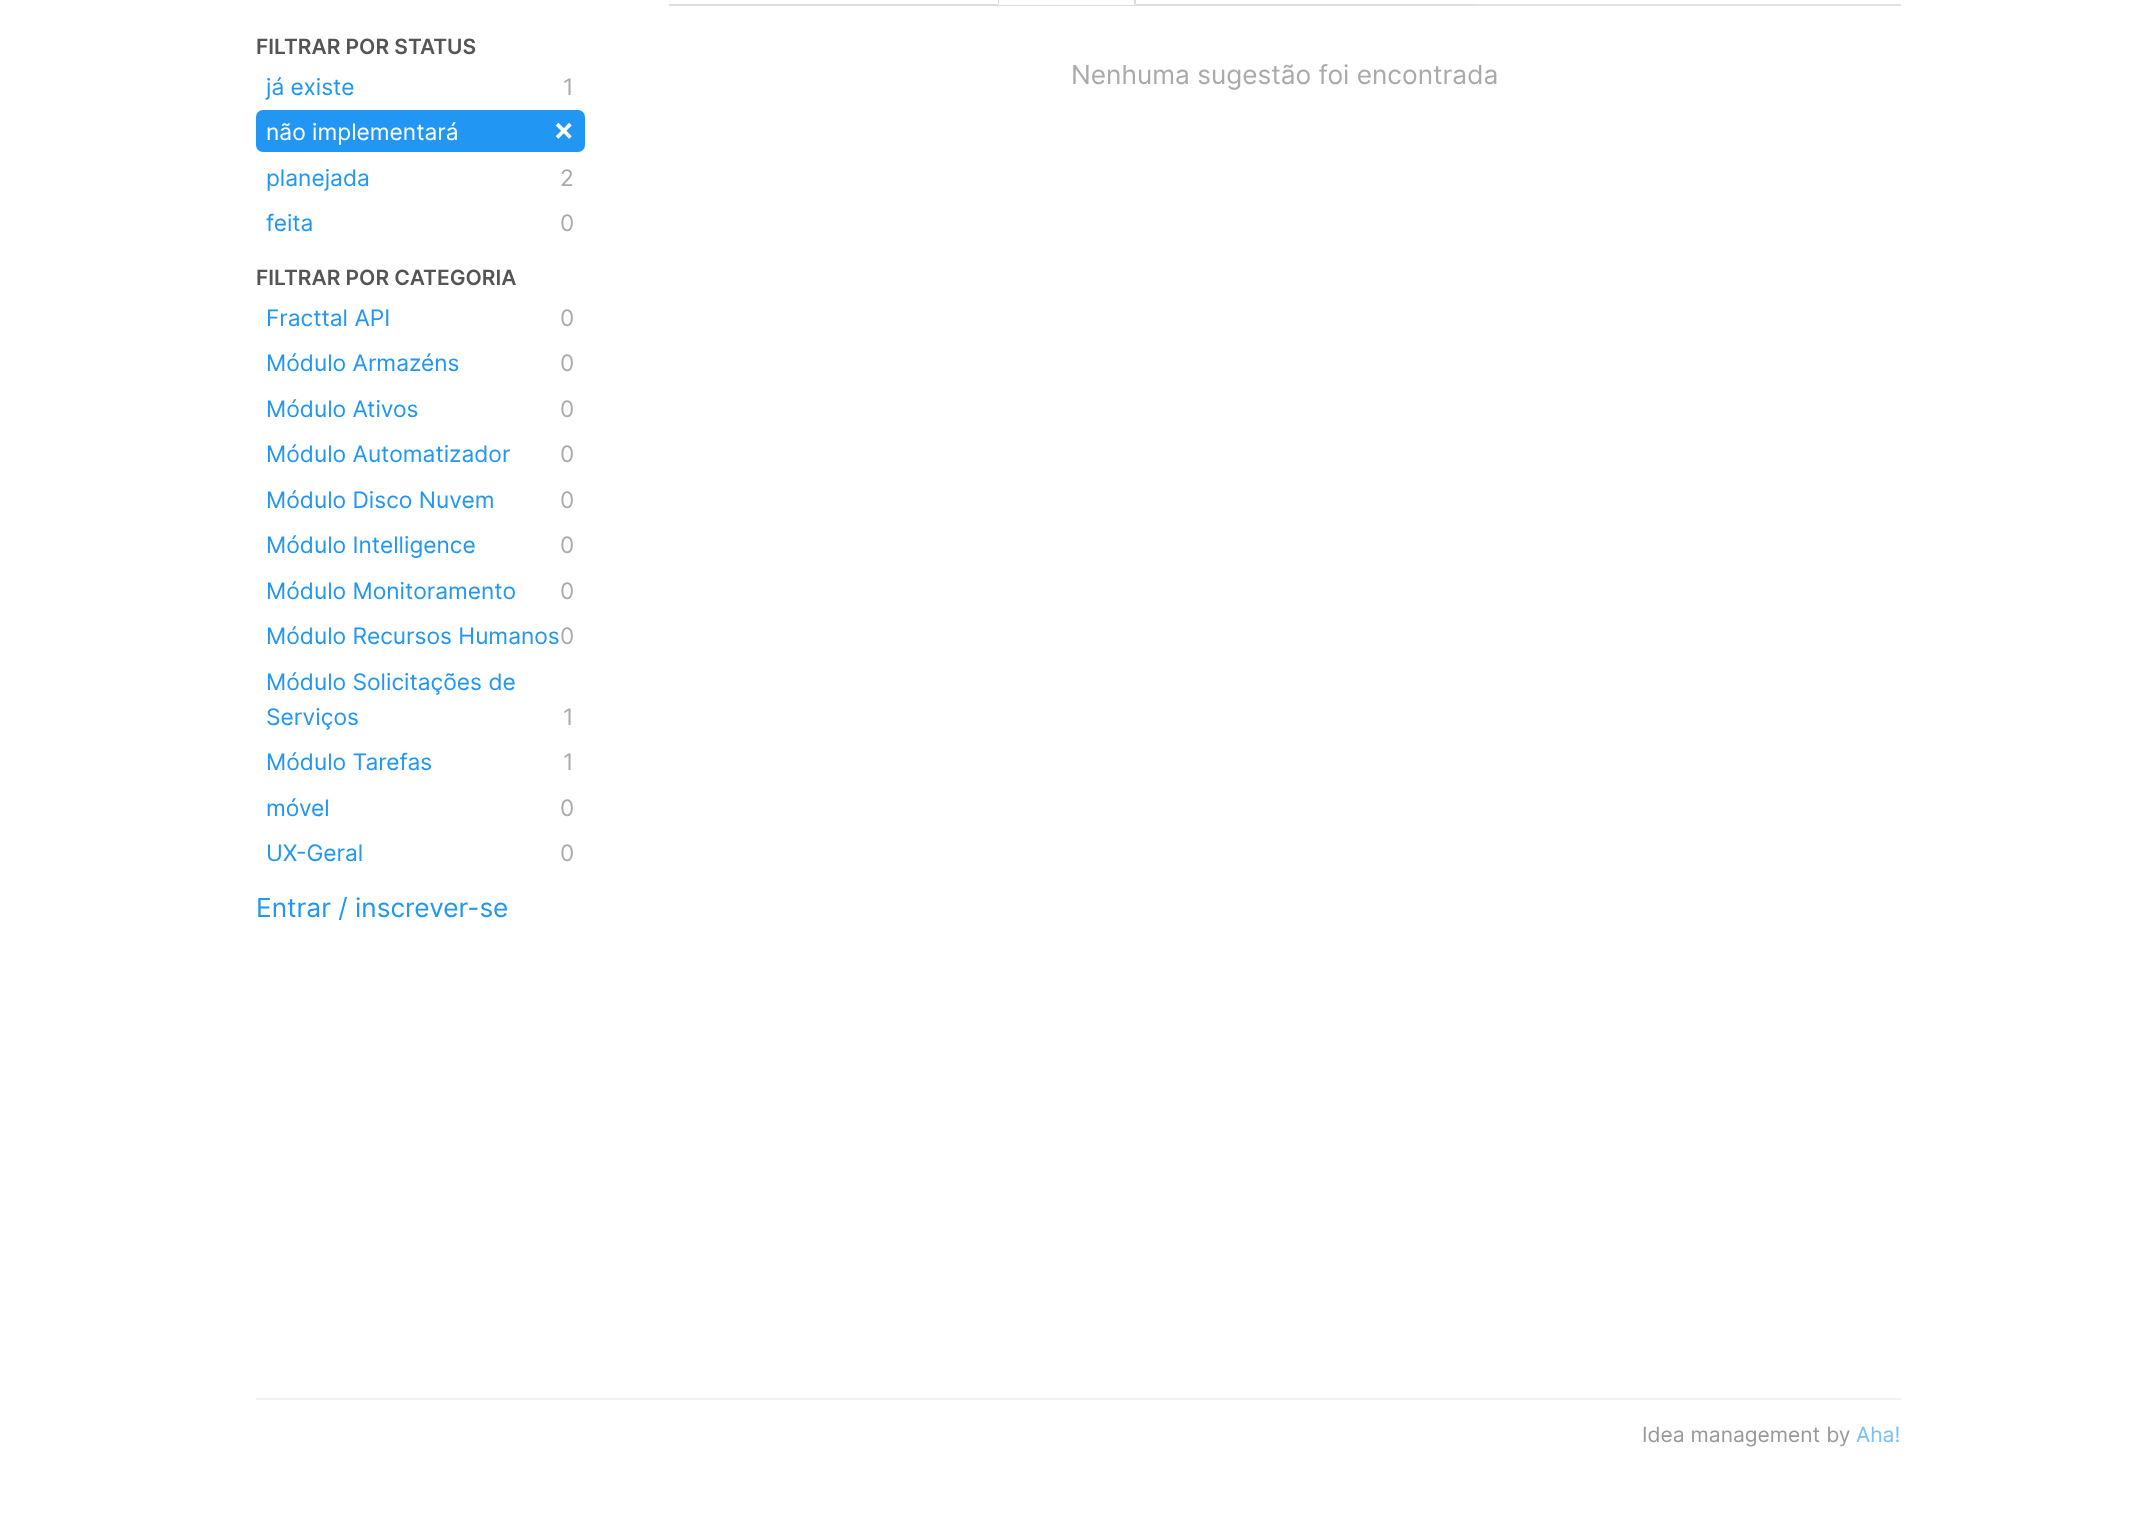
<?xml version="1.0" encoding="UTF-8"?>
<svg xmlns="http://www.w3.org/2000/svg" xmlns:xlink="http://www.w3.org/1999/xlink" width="2155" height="1540">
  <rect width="100%" height="100%" fill="#ffffff" />
  <rect x="256" y="110" width="329" height="42" rx="7" fill="#2196f3" />
  <rect x="669" y="4" width="805" height="2" fill="#dddddd" />
  <rect x="998" y="4" width="138" height="1" fill="#ffffff" />
  <path d="M 1134 -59 l 2 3 v 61 l -2 -1 v -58 c 0 -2 0 -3 -1 -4 z" fill="#dddddd" />
  <path d="M 1000 -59 c -1 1 -2 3 -2 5 v 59 l 1 -1 v -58 c 0 -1 1 -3 2 -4 z" fill="#dddddd" />
  <rect x="1474" y="4" width="427" height="2" fill="#e1e1e1" />
  <rect x="256" y="1398" width="1645" height="2" fill="#f1f1f1" />
  <text x="256" y="54" style="font-family: Inter; font-size: 21px; font-weight: 600; fill: #555555">FILTRAR POR STATUS</text>
  <text x="266" y="95" style="font-family: Inter; font-size: 22.75px; fill: #2196f3">já existe</text>
  <text x="563" y="95" style="font-family: Inter; font-size: 22.75px; fill: #aaaaaa">1</text>
  <text x="266" y="140" style="font-family: Inter; font-size: 22.75px; fill: #ffffff">não implementará</text>
  <text x="553" y="140" style="font-family: Inter; font-size: 32px; font-weight: 600; fill: #ffffff">×</text>
  <text x="266" y="186" style="font-family: Inter; font-size: 22.75px; fill: #2196f3">planejada</text>
  <text x="560" y="186" style="font-family: Inter; font-size: 22.75px; fill: #aaaaaa">2</text>
  <text x="266" y="231" style="font-family: Inter; font-size: 22.75px; fill: #2196f3">feita</text>
  <text x="560" y="231" style="font-family: Inter; font-size: 22.75px; fill: #aaaaaa">0</text>
  <text x="256" y="285" style="font-family: Inter; font-size: 21px; font-weight: 600; fill: #555555">FILTRAR POR CATEGORIA</text>
  <text x="266" y="326" style="font-family: Inter; font-size: 22.75px; fill: #2196f3">Fracttal API</text>
  <text x="560" y="326" style="font-family: Inter; font-size: 22.75px; fill: #aaaaaa">0</text>
  <text x="266" y="371" style="font-family: Inter; font-size: 22.75px; fill: #2196f3">Módulo Armazéns</text>
  <text x="560" y="371" style="font-family: Inter; font-size: 22.75px; fill: #aaaaaa">0</text>
  <text x="266" y="417" style="font-family: Inter; font-size: 22.75px; fill: #2196f3">Módulo Ativos</text>
  <text x="560" y="417" style="font-family: Inter; font-size: 22.75px; fill: #aaaaaa">0</text>
  <text x="266" y="462" style="font-family: Inter; font-size: 22.75px; fill: #2196f3">Módulo Automatizador</text>
  <text x="560" y="462" style="font-family: Inter; font-size: 22.75px; fill: #aaaaaa">0</text>
  <text x="266" y="508" style="font-family: Inter; font-size: 22.75px; fill: #2196f3">Módulo Disco Nuvem</text>
  <text x="560" y="508" style="font-family: Inter; font-size: 22.75px; fill: #aaaaaa">0</text>
  <text x="266" y="553" style="font-family: Inter; font-size: 22.75px; fill: #2196f3">Módulo Intelligence</text>
  <text x="560" y="553" style="font-family: Inter; font-size: 22.75px; fill: #aaaaaa">0</text>
  <text x="266" y="599" style="font-family: Inter; font-size: 22.75px; fill: #2196f3">Módulo Monitoramento</text>
  <text x="560" y="599" style="font-family: Inter; font-size: 22.75px; fill: #aaaaaa">0</text>
  <text x="266" y="644" style="font-family: Inter; font-size: 22.75px; fill: #2196f3">Módulo Recursos Humanos</text>
  <text x="560" y="644" style="font-family: Inter; font-size: 22.75px; fill: #aaaaaa">0</text>
  <text x="266" y="690" style="font-family: Inter; font-size: 22.75px; fill: #2196f3">Módulo Solicitações de</text>
  <text x="266" y="725" style="font-family: Inter; font-size: 22.75px; fill: #2196f3">Serviços</text>
  <text x="563" y="725" style="font-family: Inter; font-size: 22.75px; fill: #aaaaaa">1</text>
  <text x="266" y="770" style="font-family: Inter; font-size: 22.75px; fill: #2196f3">Módulo Tarefas</text>
  <text x="563" y="770" style="font-family: Inter; font-size: 22.75px; fill: #aaaaaa">1</text>
  <text x="266" y="816" style="font-family: Inter; font-size: 22.75px; fill: #2196f3">móvel</text>
  <text x="560" y="816" style="font-family: Inter; font-size: 22.75px; fill: #aaaaaa">0</text>
  <text x="266" y="861" style="font-family: Inter; font-size: 22.75px; fill: #2196f3">UX-Geral</text>
  <text x="560" y="861" style="font-family: Inter; font-size: 22.75px; fill: #aaaaaa">0</text>
  <text x="256" y="917" style="font-family: Inter; font-size: 26.25px; fill: #2196f3">Entrar / inscrever-se</text>
  <text x="1071" y="84" style="font-family: Inter; font-size: 26.25px; fill: #aaaaaa">Nenhuma sugestão foi encontrada</text>
  <text x="1642" y="1442" style="font-family: Inter; font-size: 21px; fill: #999999">Idea management by</text>
  <text x="1856" y="1442" style="font-family: Inter; font-size: 21px; fill: #7ac0f8">Aha!</text>
</svg>
